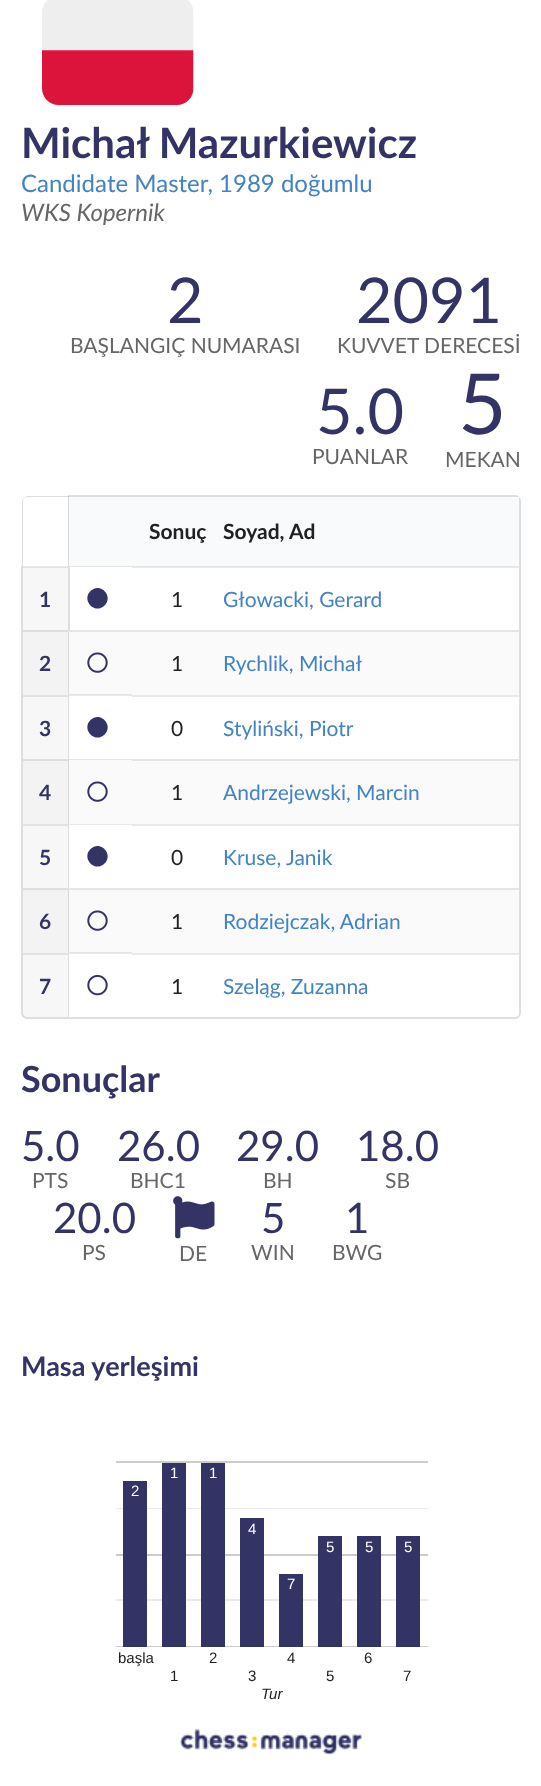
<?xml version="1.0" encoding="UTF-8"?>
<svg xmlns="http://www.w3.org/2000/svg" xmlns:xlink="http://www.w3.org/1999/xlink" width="541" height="1786">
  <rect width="100%" height="100%" fill="#ffffff" />
  <rect x="23" y="568" width="45" height="62" fill="#f7f7f7" />
  <rect x="132" y="567" width="387" height="1" fill="#e9e9e9" />
  <image x="42" y="0" width="152" height="105" xlink:href="image1.png" />
  <rect x="22" y="496" width="498" height="522" rx="5" fill="none" stroke="#dedede" stroke-width="2" />
  <path d="M 26 491 c -4 0 -8 4 -8 8 v 67 h 4 v -64 c 0 -3 3 -6 6 -6 h 40 v 70 v -75 z" fill="#ffffff" />
  <rect x="23" y="566" width="45" height="1" fill="#e9e9e9" />
  <rect x="23" y="567" width="45" height="1" fill="#e2e2e2" />
  <rect x="68" y="497" width="64" height="70" fill="#f9fafb" />
  <path d="M 132 567 h -64 l 1 -1 h 63 z" fill="#e3e5e6" />
  <path d="M 68 567 v -71 h 1 v 70 z" fill="#222426" fill-opacity="0.15" />
  <rect x="132" y="497" width="387" height="69" fill="#f9fafb" />
  <rect x="132" y="566" width="387" height="1" fill="#e4e5e6" />
  <rect x="68" y="567" width="2" height="63" fill="#dedede" />
  <path d="M 90.5 591 c 9.5 -9.5 23.5 5 14 14.5 c -9.5 9.5 -23.5 -5 -14 -14.5 z" fill="#333365" />
  <rect x="68" y="630" width="451" height="65" fill="#fafafb" />
  <rect x="23" y="632" width="45" height="63" fill="#f3f3f3" />
  <rect x="23" y="630" width="45" height="2" fill="#dededf" />
  <path d="M 68 630 h 64 v 2 h -63 z" fill="#e4e5e6" />
  <path d="M 68 694 v -64 l 1 2 v 62 z" fill="#222426" fill-opacity="0.15" />
  <image x="87" y="652" width="21" height="21" xlink:href="image2.png" />
  <rect x="132" y="630" width="387" height="2" fill="#e4e5e6" />
  <rect x="23" y="697" width="45" height="62" fill="#f7f7f7" />
  <rect x="23" y="695" width="45" height="2" fill="#e2e2e2" />
  <path d="M 68 694 h 64 v 2 h -63 z" fill="#222426" fill-opacity="0.1" />
  <path d="M 68 759 v -65 l 1 2 v 63 z" fill="#222426" fill-opacity="0.15" />
  <path d="M 90.5 720 c 9.5 -9.5 23.5 5 14 14.5 c -9.5 9.5 -23.5 -5 -14 -14.5 z" fill="#333365" />
  <rect x="132" y="695" width="387" height="2" fill="#e9e9e9" />
  <rect x="68" y="759" width="451" height="65" fill="#fafafb" />
  <rect x="23" y="761" width="45" height="63" fill="#f3f3f3" />
  <rect x="23" y="759" width="45" height="2" fill="#dededf" />
  <path d="M 68 759 h 64 v 1 h -63 z" fill="#e4e5e6" />
  <path d="M 68 824 v -65 l 1 1 v 64 z" fill="#222426" fill-opacity="0.15" />
  <image x="87" y="781" width="21" height="21" xlink:href="image2.png" />
  <rect x="132" y="759" width="387" height="2" fill="#e4e5e6" />
  <rect x="23" y="826" width="45" height="62" fill="#f7f7f7" />
  <rect x="23" y="824" width="45" height="2" fill="#e2e2e2" />
  <path d="M 68 824 h 64 v 1 h -63 z" fill="#e9e9e9" />
  <path d="M 68 888 v -64 l 1 1 v 63 z" fill="#222426" fill-opacity="0.15" />
  <path d="M 90.5 849 c 9.5 -9.5 23.5 5 14 14.5 c -9.5 9.5 -23.5 -5 -14 -14.5 z" fill="#333365" />
  <rect x="132" y="824" width="387" height="2" fill="#e9e9e9" />
  <rect x="68" y="888" width="451" height="65" fill="#fafafb" />
  <rect x="23" y="890" width="45" height="63" fill="#f3f3f3" />
  <rect x="23" y="888" width="45" height="2" fill="#dededf" />
  <path d="M 68 888 h 64 v 2 h -63 z" fill="#e4e5e6" />
  <path d="M 68 952 v -64 l 1 2 v 62 z" fill="#222426" fill-opacity="0.15" />
  <image x="87" y="910" width="21" height="21" xlink:href="image2.png" />
  <rect x="132" y="888" width="387" height="2" fill="#e4e5e6" />
  <rect x="23" y="955" width="45" height="62" fill="#000000" fill-opacity="0.03" />
  <rect x="23" y="953" width="45" height="2" fill="#e2e2e2" />
  <path d="M 68 952 h 64 v 2 h -63 z" fill="#222426" fill-opacity="0.1" />
  <path d="M 68 1017 v -65 l 1 2 v 63 z" fill="#222426" fill-opacity="0.15" />
  <image x="87" y="975" width="21" height="21" xlink:href="image3.png" />
  <rect x="132" y="953" width="387" height="2" fill="#e9e9e9" />
  <image x="173" y="1196" width="42" height="43" xlink:href="image4.png" />
  <rect x="116" y="1461" width="312" height="2" fill="#cccccc" />
  <rect x="116" y="1508" width="312" height="1" fill="#ebebeb" />
  <rect x="116" y="1554" width="312" height="2" fill="#cccccc" />
  <rect x="116" y="1599" width="312" height="2" fill="#ebebeb" />
  <rect x="116" y="1646" width="312" height="1" fill="#cccccc" />
  <rect x="123" y="1481" width="24" height="166" fill="#333365" />
  <rect x="162" y="1463" width="24" height="184" fill="#333365" />
  <rect x="201" y="1463" width="24" height="184" fill="#333365" />
  <rect x="396" y="1536" width="24" height="111" fill="#333365" />
  <rect x="240" y="1518" width="24" height="129" fill="#333365" />
  <rect x="279" y="1574" width="24" height="73" fill="#333365" />
  <rect x="318" y="1536" width="24" height="111" fill="#333365" />
  <rect x="357" y="1536" width="24" height="111" fill="#333365" />
  <image x="179" y="1729" width="183" height="26" xlink:href="image5.png" />
  <text x="21" y="158" style="font-family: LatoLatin; font-size: 42px; font-weight: bold; fill: #333365">Michał Mazurkiewicz</text>
  <text x="21" y="192" style="font-family: LatoLatin; font-size: 24px; fill: #4183c4">Candidate Master, 1989 doğumlu</text>
  <text x="21" y="221" style="font-family: LatoLatin; font-size: 24px; font-style: italic; fill: #666666">WKS Kopernik</text>
  <text x="167" y="323" style="font-family: LatoLatin; font-size: 63px; fill: #333365">2</text>
  <text x="70" y="353" style="font-family: LatoLatin; font-size: 21px; fill: #666666">BAŞLANGIÇ NUMARASI</text>
  <text x="356" y="323" style="font-family: LatoLatin; font-size: 63px; fill: #333365">2091</text>
  <text x="337" y="353" style="font-family: LatoLatin; font-size: 21px; fill: #666666">KUVVET DERECESİ</text>
  <text x="316" y="434" style="font-family: LatoLatin; font-size: 63px; fill: #333365">5.0</text>
  <text x="312" y="464" style="font-family: LatoLatin; font-size: 21px; fill: #666666">PUANLAR</text>
  <text x="458" y="434" style="font-family: LatoLatin; font-size: 84px; fill: #333365">5</text>
  <text x="445" y="467" style="font-family: LatoLatin; font-size: 21px; fill: #666666">MEKAN</text>
  <text x="149" y="539" style="font-family: LatoLatin; font-size: 21px; font-weight: bold; fill: #202121">Sonuç</text>
  <text x="223" y="539" style="font-family: LatoLatin; font-size: 21px; font-weight: bold; fill: #202121">Soyad, Ad</text>
  <text x="39" y="607" style="font-family: LatoLatin; font-size: 21px; font-weight: bold; fill: #333365">1</text>
  <text x="171" y="607" style="font-family: LatoLatin; font-size: 21px; fill: #202121">1</text>
  <text x="223" y="607" style="font-family: LatoLatin; font-size: 21px; fill: #4183c4">Głowacki, Gerard</text>
  <text x="39" y="671" style="font-family: LatoLatin; font-size: 21px; font-weight: bold; fill: #333365">2</text>
  <text x="171" y="671" style="font-family: LatoLatin; font-size: 21px; fill: #202121">1</text>
  <text x="223" y="671" style="font-family: LatoLatin; font-size: 21px; fill: #4183c4">Rychlik, Michał</text>
  <text x="39" y="736" style="font-family: LatoLatin; font-size: 21px; font-weight: bold; fill: #333365">3</text>
  <text x="171" y="736" style="font-family: LatoLatin; font-size: 21px; fill: #202121">0</text>
  <text x="223" y="736" style="font-family: LatoLatin; font-size: 21px; fill: #4183c4">Styliński, Piotr</text>
  <text x="39" y="800" style="font-family: LatoLatin; font-size: 21px; font-weight: bold; fill: #333365">4</text>
  <text x="171" y="800" style="font-family: LatoLatin; font-size: 21px; fill: #202121">1</text>
  <text x="223" y="800" style="font-family: LatoLatin; font-size: 21px; fill: #4183c4">Andrzejewski, Marcin</text>
  <text x="39" y="865" style="font-family: LatoLatin; font-size: 21px; font-weight: bold; fill: #333365">5</text>
  <text x="171" y="865" style="font-family: LatoLatin; font-size: 21px; fill: #202121">0</text>
  <text x="223" y="865" style="font-family: LatoLatin; font-size: 21px; fill: #4183c4">Kruse, Janik</text>
  <text x="39" y="929" style="font-family: LatoLatin; font-size: 21px; font-weight: bold; fill: #333365">6</text>
  <text x="171" y="929" style="font-family: LatoLatin; font-size: 21px; fill: #202121">1</text>
  <text x="223" y="929" style="font-family: LatoLatin; font-size: 21px; fill: #4183c4">Rodziejczak, Adrian</text>
  <text x="39" y="994" style="font-family: LatoLatin; font-size: 21px; font-weight: bold; fill: #333365">7</text>
  <text x="171" y="994" style="font-family: LatoLatin; font-size: 21px; fill: #202121">1</text>
  <text x="223" y="994" style="font-family: LatoLatin; font-size: 21px; fill: #4183c4">Szeląg, Zuzanna</text>
  <text x="21" y="1092" style="font-family: LatoLatin; font-size: 36px; font-weight: bold; fill: #333365">Sonuçlar</text>
  <text x="21" y="1161" style="font-family: LatoLatin; font-size: 42px; fill: #333365">5.0</text>
  <text x="32" y="1188" style="font-family: LatoLatin; font-size: 21px; fill: #666666">PTS</text>
  <text x="117" y="1161" style="font-family: LatoLatin; font-size: 42px; fill: #333365">26.0</text>
  <text x="130" y="1188" style="font-family: LatoLatin; font-size: 21px; fill: #666666">BHC1</text>
  <text x="236" y="1161" style="font-family: LatoLatin; font-size: 42px; fill: #333365">29.0</text>
  <text x="263" y="1188" style="font-family: LatoLatin; font-size: 21px; fill: #666666">BH</text>
  <text x="356" y="1161" style="font-family: LatoLatin; font-size: 42px; fill: #333365">18.0</text>
  <text x="385" y="1188" style="font-family: LatoLatin; font-size: 21px; fill: #666666">SB</text>
  <text x="53" y="1233" style="font-family: LatoLatin; font-size: 42px; fill: #333365">20.0</text>
  <text x="82" y="1260" style="font-family: LatoLatin; font-size: 21px; fill: #666666">PS</text>
  <text x="179" y="1261" style="font-family: LatoLatin; font-size: 21px; fill: #666666">DE</text>
  <text x="261" y="1233" style="font-family: LatoLatin; font-size: 42px; fill: #333365">5</text>
  <text x="251" y="1260" style="font-family: LatoLatin; font-size: 21px; fill: #666666">WIN</text>
  <text x="345" y="1233" style="font-family: LatoLatin; font-size: 42px; fill: #333365">1</text>
  <text x="332" y="1260" style="font-family: LatoLatin; font-size: 21px; fill: #666666">BWG</text>
  <text x="21" y="1376" style="font-family: LatoLatin; font-size: 27px; font-weight: bold; fill: #333365">Masa yerleşimi</text>
  <text x="170" y="1478" style="font-family: Liberation Sans; font-size: 15px; fill: #ffffff">1</text>
  <text x="209" y="1478" style="font-family: Liberation Sans; font-size: 15px; fill: #ffffff">1</text>
  <text x="131" y="1496" style="font-family: Liberation Sans; font-size: 15px; fill: #ffffff">2</text>
  <text x="248" y="1534" style="font-family: Liberation Sans; font-size: 15px; fill: #ffffff">4</text>
  <text x="326" y="1552" style="font-family: Liberation Sans; font-size: 15px; fill: #ffffff">5</text>
  <text x="365" y="1552" style="font-family: Liberation Sans; font-size: 15px; fill: #ffffff">5</text>
  <text x="404" y="1552" style="font-family: Liberation Sans; font-size: 15px; fill: #ffffff">5</text>
  <text x="287" y="1589" style="font-family: Liberation Sans; font-size: 15px; fill: #ffffff">7</text>
  <text x="118" y="1663" style="font-family: Liberation Sans; font-size: 15px; fill: #202121">başla</text>
  <text x="209" y="1663" style="font-family: Liberation Sans; font-size: 15px; fill: #202121">2</text>
  <text x="287" y="1663" style="font-family: Liberation Sans; font-size: 15px; fill: #202121">4</text>
  <text x="364" y="1663" style="font-family: Liberation Sans; font-size: 15px; fill: #202121">6</text>
  <text x="170" y="1681" style="font-family: Liberation Sans; font-size: 15px; fill: #202121">1</text>
  <text x="248" y="1681" style="font-family: Liberation Sans; font-size: 15px; fill: #202121">3</text>
  <text x="326" y="1681" style="font-family: Liberation Sans; font-size: 15px; fill: #202121">5</text>
  <text x="403" y="1681" style="font-family: Liberation Sans; font-size: 15px; fill: #202121">7</text>
  <text x="261" y="1699" style="font-family: Liberation Sans; font-size: 15px; font-style: italic; fill: #202121">Tur</text>
</svg>
